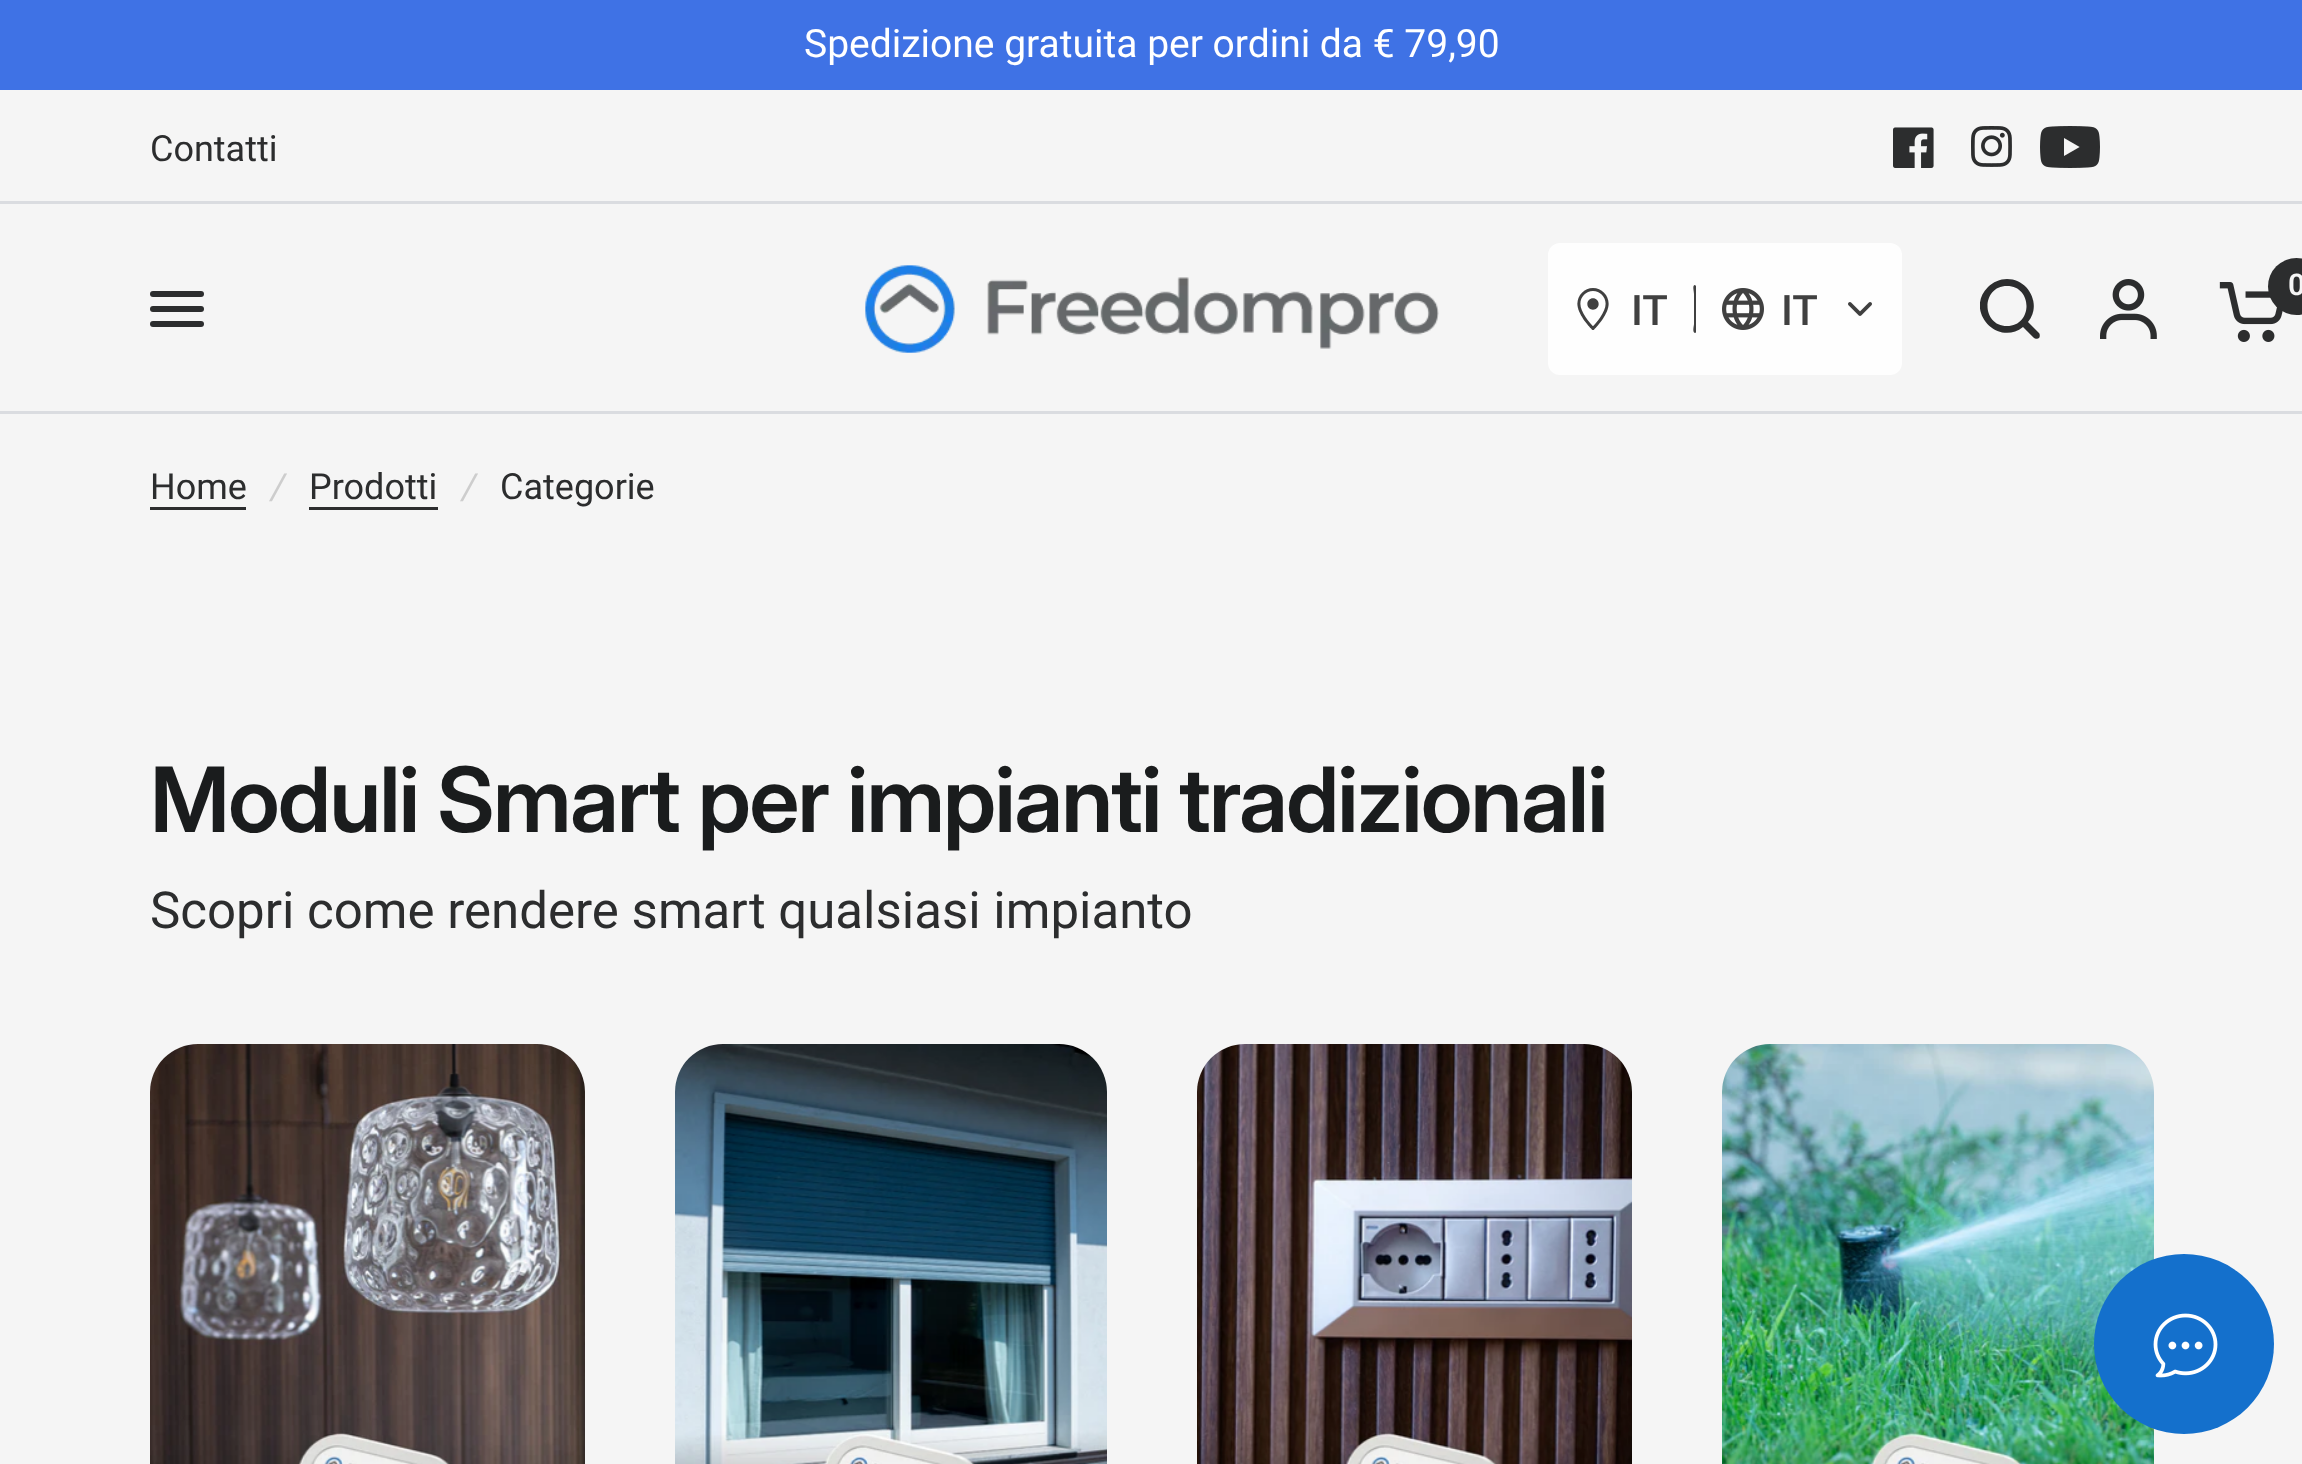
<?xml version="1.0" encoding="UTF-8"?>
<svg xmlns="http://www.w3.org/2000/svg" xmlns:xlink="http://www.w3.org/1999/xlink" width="2302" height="1464">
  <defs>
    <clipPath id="clip1"><rect x="1980" y="279" width="60" height="60" /></clipPath>
  </defs>
  <rect width="100%" height="100%" fill="#f5f5f5" />
  <rect width="2302" height="90" fill="#3f72e5" />
  <rect y="201" width="2302" height="3" fill="#dadce0" />
  <image x="1893" y="127" width="41" height="41" xlink:href="image1.png" />
  <image x="1971" y="126" width="41" height="41" xlink:href="image2.png" />
  <image x="2040" y="126" width="60" height="42" xlink:href="image3.png" />
  <rect x="150" y="291" width="54" height="6" rx="3" fill="#2c2d2e" />
  <rect x="150" y="306" width="54" height="6" rx="3" fill="#2c2d2e" />
  <rect x="150" y="321" width="54" height="6" rx="3" fill="#2c2d2e" />
  <image x="865" y="265" width="574" height="88" xlink:href="image4.png" />
  <rect x="1548" y="243" width="354" height="132" rx="12" fill="#fefefe" />
  <image x="1577" y="288" width="32" height="42" xlink:href="image5.png" />
  <path d="M 1696 332 c 0 0 0 1 -1 1 c -3 -1 -1 -7 -1 -9 v -30 c 0 -3 -2 -9 1 -9 l 1 1 z" fill="#404040" />
  <image x="1722" y="288" width="42" height="42" xlink:href="image6.png" />
  <image x="1848" y="302" width="24" height="14" xlink:href="image7.png" />
  <g clip-path="url(#clip1)">
    <path d="M 2007 279 c -7 0 -14 3 -19 8 c -24 24 10 60 35 40 l 11 11 c 1 1 4 1 5 0 c 1 -1 1 -4 0 -5 l -11 -11 c 14 -17 1 -43 -21 -43 z m 0 7 c 26 0 26 40 0 40 c -26 0 -26 -40 0 -40 z" fill="#2c2d2e" />
  </g>
  <image x="2100" y="279" width="57" height="60" xlink:href="image8.png" />
  <image x="2219" y="282" width="64" height="60" xlink:href="image9.png" />
  <circle cx="2296.5" cy="286.5" r="28.5" fill="#2c2d2e" />
  <rect y="411" width="2302" height="3" fill="#dadce0" />
  <rect x="150" y="507" width="96" height="3" fill="#2c2d2e" />
  <rect x="309" y="507" width="129" height="3" fill="#2c2d2e" />
  <image x="150" y="1044" width="435" height="420" xlink:href="image10.png" />
  <image x="675" y="1044" width="432" height="420" xlink:href="image11.png" />
  <image x="1197" y="1044" width="435" height="420" xlink:href="image12.png" />
  <image x="1722" y="1044" width="432" height="420" xlink:href="image13.png" />
  <circle cx="2184" cy="1344" r="90" fill="#1470cc" />
  <image x="2153" y="1313" width="65" height="65" xlink:href="image14.png" />
  <text x="804" y="57" style="font-family: Roboto; font-size: 39px; fill: #ffffff">Spedizione gratuita per ordini da € 79,90</text>
  <text x="150" y="161" style="font-family: Roboto; font-size: 36px; fill: #2c2d2e">Contatti</text>
  <text x="1631" y="325" style="font-family: Roboto; font-size: 42px; font-weight: 500; fill: #404040">IT</text>
  <text x="1781" y="325" style="font-family: Roboto; font-size: 42px; font-weight: 500; fill: #404040">IT</text>
  <text x="2288" y="295" style="font-family: Roboto; font-size: 30px; font-weight: 600; fill: #f5f5f5">0</text>
  <text x="150" y="499" style="font-family: Roboto; font-size: 36px; fill: #2c2d2e">Home</text>
  <text x="271" y="499" style="font-family: Roboto; font-size: 36px; font-style: italic; fill: #cdcdcd">/</text>
  <text x="309" y="499" style="font-family: Roboto; font-size: 36px; fill: #2c2d2e">Prodotti</text>
  <text x="462" y="499" style="font-family: Roboto; font-size: 36px; font-style: italic; fill: #cdcdcd">/</text>
  <text x="500" y="499" style="font-family: Roboto; font-size: 36px; fill: #2c2d2e">Categorie</text>
  <text x="150" y="832" style="font-family: Inter; font-size: 90px; font-weight: 600; letter-spacing: -1.8px; fill: #1a1c1d">Moduli Smart per impianti tradizionali</text>
  <text x="150" y="928" style="font-family: Roboto; font-size: 51px; fill: #2c2d2e">Scopri come rendere smart qualsiasi impianto</text>
</svg>
